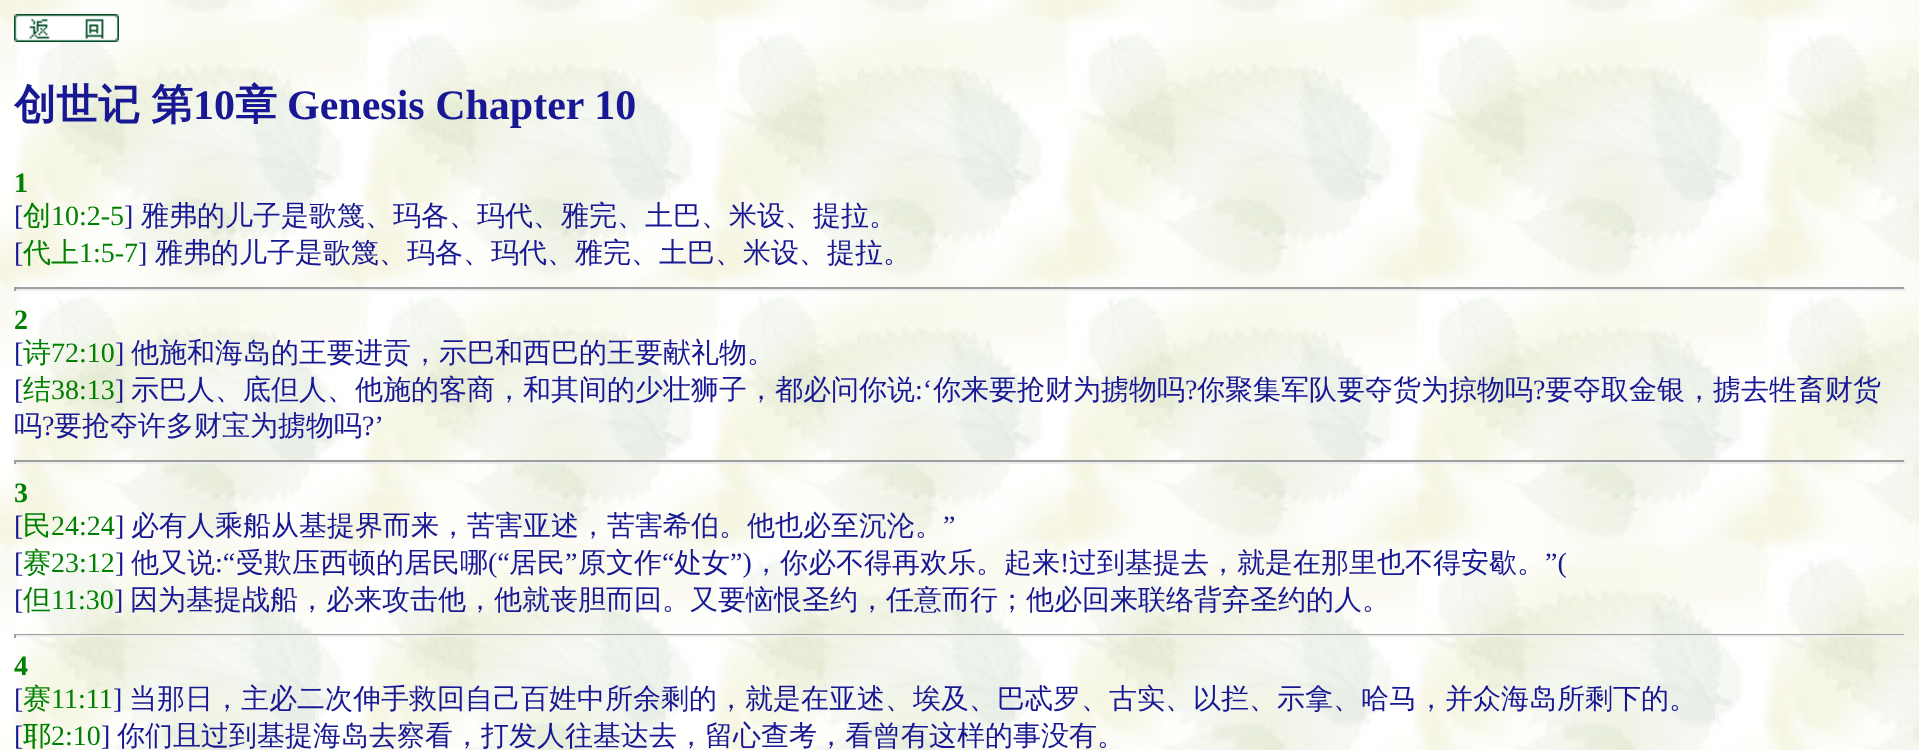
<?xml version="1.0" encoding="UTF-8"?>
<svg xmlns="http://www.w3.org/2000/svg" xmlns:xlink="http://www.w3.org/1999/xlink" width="1919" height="750">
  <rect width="100%" height="100%" fill="#ffffff" />
  <image x="0" y="0" width="1919" height="750" xlink:href="image1.png" />
  <image x="14" y="14" width="105" height="28" xlink:href="image2.png" />
  <rect x="14" y="287" width="1892" height="2" fill="#9f9f9f" />
  <rect x="1904" y="287" width="2" height="4" fill="#eeeeee" />
  <rect x="14" y="289" width="1892" height="2" fill="#eeeeee" />
  <rect x="14" y="287" width="2" height="4" fill="#9f9f9f" />
  <rect x="14" y="460" width="1892" height="2" fill="#9f9f9f" />
  <rect x="1904" y="460" width="2" height="4" fill="#eeeeee" />
  <rect x="14" y="462" width="1892" height="2" fill="#eeeeee" />
  <rect x="14" y="460" width="2" height="4" fill="#9f9f9f" />
  <rect x="14" y="634" width="1892" height="1" fill="#9f9f9f" />
  <rect x="1904" y="634" width="2" height="4" fill="#eeeeee" />
  <rect x="14" y="635" width="1892" height="2" fill="#eeeeee" />
  <rect x="14" y="634" width="2" height="4" fill="#9f9f9f" />
  <text x="14" y="119" style="font-family: WenQuanYi Zen Hei; font-size: 42px; font-weight: bold; fill: #181894">创世记</text>
  <text x="151" y="119" style="font-family: WenQuanYi Zen Hei; font-size: 42px; font-weight: bold; fill: #181894">第</text>
  <text x="193" y="119" style="font-family: Liberation Serif; font-size: 42px; font-weight: bold; fill: #181894">10</text>
  <text x="235" y="119" style="font-family: WenQuanYi Zen Hei; font-size: 42px; font-weight: bold; fill: #181894">章</text>
  <text x="287" y="119" style="font-family: Liberation Serif; font-size: 42px; font-weight: bold; fill: #181894">Genesis Chapter 10</text>
  <text x="14" y="192" style="font-family: Liberation Serif; font-size: 28px; font-weight: bold; fill: #008000">1</text>
  <text x="14" y="225" style="font-family: Liberation Serif; font-size: 28px; fill: #181894">[</text>
  <text x="23" y="225" style="font-family: WenQuanYi Zen Hei; font-size: 28px; font-weight: 500; fill: #008000">创</text>
  <text x="51" y="225" style="font-family: Liberation Serif; font-size: 28px; fill: #008000">10:2-5</text>
  <text x="124" y="225" style="font-family: Liberation Serif; font-size: 28px; fill: #181894">]</text>
  <text x="141" y="225" style="font-family: WenQuanYi Zen Hei; font-size: 28px; font-weight: 500; fill: #181894">雅弗的儿子是歌篾、玛各、玛代、雅完、土巴、米设、提拉。</text>
  <text x="14" y="262" style="font-family: Liberation Serif; font-size: 28px; fill: #181894">[</text>
  <text x="23" y="262" style="font-family: WenQuanYi Zen Hei; font-size: 28px; font-weight: 500; fill: #008000">代上</text>
  <text x="79" y="262" style="font-family: Liberation Serif; font-size: 28px; fill: #008000">1:5-7</text>
  <text x="138" y="262" style="font-family: Liberation Serif; font-size: 28px; fill: #181894">]</text>
  <text x="155" y="262" style="font-family: WenQuanYi Zen Hei; font-size: 28px; font-weight: 500; fill: #181894">雅弗的儿子是歌篾、玛各、玛代、雅完、土巴、米设、提拉。</text>
  <text x="14" y="329" style="font-family: Liberation Serif; font-size: 28px; font-weight: bold; fill: #008000">2</text>
  <text x="14" y="362" style="font-family: Liberation Serif; font-size: 28px; fill: #181894">[</text>
  <text x="23" y="362" style="font-family: WenQuanYi Zen Hei; font-size: 28px; font-weight: 500; fill: #008000">诗</text>
  <text x="51" y="362" style="font-family: Liberation Serif; font-size: 28px; fill: #008000">72:10</text>
  <text x="115" y="362" style="font-family: Liberation Serif; font-size: 28px; fill: #181894">]</text>
  <text x="131" y="362" style="font-family: WenQuanYi Zen Hei; font-size: 28px; font-weight: 500; fill: #181894">他施和海岛的王要进贡，示巴和西巴的王要献礼物。</text>
  <text x="14" y="399" style="font-family: Liberation Serif; font-size: 28px; fill: #181894">[</text>
  <text x="23" y="399" style="font-family: WenQuanYi Zen Hei; font-size: 28px; font-weight: 500; fill: #008000">结</text>
  <text x="51" y="399" style="font-family: Liberation Serif; font-size: 28px; fill: #008000">38:13</text>
  <text x="115" y="399" style="font-family: Liberation Serif; font-size: 28px; fill: #181894">]</text>
  <text x="131" y="399" style="font-family: WenQuanYi Zen Hei; font-size: 28px; font-weight: 500; fill: #181894">示巴人、底但人、他施的客商，和其间的少壮狮子，都必问你说</text>
  <text x="915" y="399" style="font-family: Liberation Serif; font-size: 28px; fill: #181894">:‘</text>
  <text x="933" y="399" style="font-family: WenQuanYi Zen Hei; font-size: 28px; font-weight: 500; fill: #181894">你来要抢财为掳物吗</text>
  <text x="1185" y="399" style="font-family: Liberation Serif; font-size: 28px; fill: #181894">?</text>
  <text x="1197" y="399" style="font-family: WenQuanYi Zen Hei; font-size: 28px; font-weight: 500; fill: #181894">你聚集军队要夺货为掠物吗</text>
  <text x="1533" y="399" style="font-family: Liberation Serif; font-size: 28px; fill: #181894">?</text>
  <text x="1545" y="399" style="font-family: WenQuanYi Zen Hei; font-size: 28px; font-weight: 500; fill: #181894">要夺取金银，掳去牲畜财货</text>
  <text x="14" y="435" style="font-family: WenQuanYi Zen Hei; font-size: 28px; font-weight: 500; fill: #181894">吗</text>
  <text x="42" y="435" style="font-family: Liberation Serif; font-size: 28px; fill: #181894">?</text>
  <text x="54" y="435" style="font-family: WenQuanYi Zen Hei; font-size: 28px; font-weight: 500; fill: #181894">要抢夺许多财宝为掳物吗</text>
  <text x="362" y="435" style="font-family: Liberation Serif; font-size: 28px; fill: #181894">?’</text>
  <text x="14" y="502" style="font-family: Liberation Serif; font-size: 28px; font-weight: bold; fill: #008000">3</text>
  <text x="14" y="535" style="font-family: Liberation Serif; font-size: 28px; fill: #181894">[</text>
  <text x="23" y="535" style="font-family: WenQuanYi Zen Hei; font-size: 28px; font-weight: 500; fill: #008000">民</text>
  <text x="51" y="535" style="font-family: Liberation Serif; font-size: 28px; fill: #008000">24:24</text>
  <text x="115" y="535" style="font-family: Liberation Serif; font-size: 28px; fill: #181894">]</text>
  <text x="131" y="535" style="font-family: WenQuanYi Zen Hei; font-size: 28px; font-weight: 500; fill: #181894">必有人乘船从基提界而来，苦害亚述，苦害希伯。他也必至沉沦。</text>
  <text x="943" y="535" style="font-family: Liberation Serif; font-size: 28px; fill: #181894">”</text>
  <text x="14" y="572" style="font-family: Liberation Serif; font-size: 28px; fill: #181894">[</text>
  <text x="23" y="572" style="font-family: WenQuanYi Zen Hei; font-size: 28px; font-weight: 500; fill: #008000">赛</text>
  <text x="51" y="572" style="font-family: Liberation Serif; font-size: 28px; fill: #008000">23:12</text>
  <text x="115" y="572" style="font-family: Liberation Serif; font-size: 28px; fill: #181894">]</text>
  <text x="131" y="572" style="font-family: WenQuanYi Zen Hei; font-size: 28px; font-weight: 500; fill: #181894">他又说</text>
  <text x="215" y="572" style="font-family: Liberation Serif; font-size: 28px; fill: #181894">:“</text>
  <text x="236" y="572" style="font-family: WenQuanYi Zen Hei; font-size: 28px; font-weight: 500; fill: #181894">受欺压西顿的居民哪</text>
  <text x="488" y="572" style="font-family: Liberation Serif; font-size: 28px; fill: #181894">(“</text>
  <text x="509" y="572" style="font-family: WenQuanYi Zen Hei; font-size: 28px; font-weight: 500; fill: #181894">居民</text>
  <text x="565" y="572" style="font-family: Liberation Serif; font-size: 28px; fill: #181894">”</text>
  <text x="578" y="572" style="font-family: WenQuanYi Zen Hei; font-size: 28px; font-weight: 500; fill: #181894">原文作</text>
  <text x="662" y="572" style="font-family: Liberation Serif; font-size: 28px; fill: #181894">“</text>
  <text x="674" y="572" style="font-family: WenQuanYi Zen Hei; font-size: 28px; font-weight: 500; fill: #181894">处女</text>
  <text x="730" y="572" style="font-family: Liberation Serif; font-size: 28px; fill: #181894">”)</text>
  <text x="752" y="572" style="font-family: WenQuanYi Zen Hei; font-size: 28px; font-weight: 500; fill: #181894">，你必不得再欢乐。起来</text>
  <text x="1060" y="572" style="font-family: Liberation Serif; font-size: 28px; fill: #181894">!</text>
  <text x="1069" y="572" style="font-family: WenQuanYi Zen Hei; font-size: 28px; font-weight: 500; fill: #181894">过到基提去，就是在那里也不得安歇。</text>
  <text x="1545" y="572" style="font-family: Liberation Serif; font-size: 28px; fill: #181894">”(</text>
  <text x="14" y="609" style="font-family: Liberation Serif; font-size: 28px; fill: #181894">[</text>
  <text x="23" y="609" style="font-family: WenQuanYi Zen Hei; font-size: 28px; font-weight: 500; fill: #008000">但</text>
  <text x="51" y="609" style="font-family: Liberation Serif; font-size: 28px; fill: #008000">11:30</text>
  <text x="114" y="609" style="font-family: Liberation Serif; font-size: 28px; fill: #181894">]</text>
  <text x="130" y="609" style="font-family: WenQuanYi Zen Hei; font-size: 28px; font-weight: 500; fill: #181894">因为基提战船，必来攻击他，他就丧胆而回。又要恼恨圣约，任意而行；他必回来联络背弃圣约的人。</text>
  <text x="14" y="675" style="font-family: Liberation Serif; font-size: 28px; font-weight: bold; fill: #008000">4</text>
  <text x="14" y="708" style="font-family: Liberation Serif; font-size: 28px; fill: #181894">[</text>
  <text x="23" y="708" style="font-family: WenQuanYi Zen Hei; font-size: 28px; font-weight: 500; fill: #008000">赛</text>
  <text x="51" y="708" style="font-family: Liberation Serif; font-size: 28px; fill: #008000">11:11</text>
  <text x="113" y="708" style="font-family: Liberation Serif; font-size: 28px; fill: #181894">]</text>
  <text x="129" y="708" style="font-family: WenQuanYi Zen Hei; font-size: 28px; font-weight: 500; fill: #181894">当那日，主必二次伸手救回自己百姓中所余剩的，就是在亚述、埃及、巴忒罗、古实、以拦、示拿、哈马，并众海岛所剩下的。</text>
  <text x="14" y="745" style="font-family: Liberation Serif; font-size: 28px; fill: #181894">[</text>
  <text x="23" y="745" style="font-family: WenQuanYi Zen Hei; font-size: 28px; font-weight: 500; fill: #008000">耶</text>
  <text x="51" y="745" style="font-family: Liberation Serif; font-size: 28px; fill: #008000">2:10</text>
  <text x="101" y="745" style="font-family: Liberation Serif; font-size: 28px; fill: #181894">]</text>
  <text x="117" y="745" style="font-family: WenQuanYi Zen Hei; font-size: 28px; font-weight: 500; fill: #181894">你们且过到基提海岛去察看，打发人往基达去，留心查考，看曾有这样的事没有。</text>
</svg>
